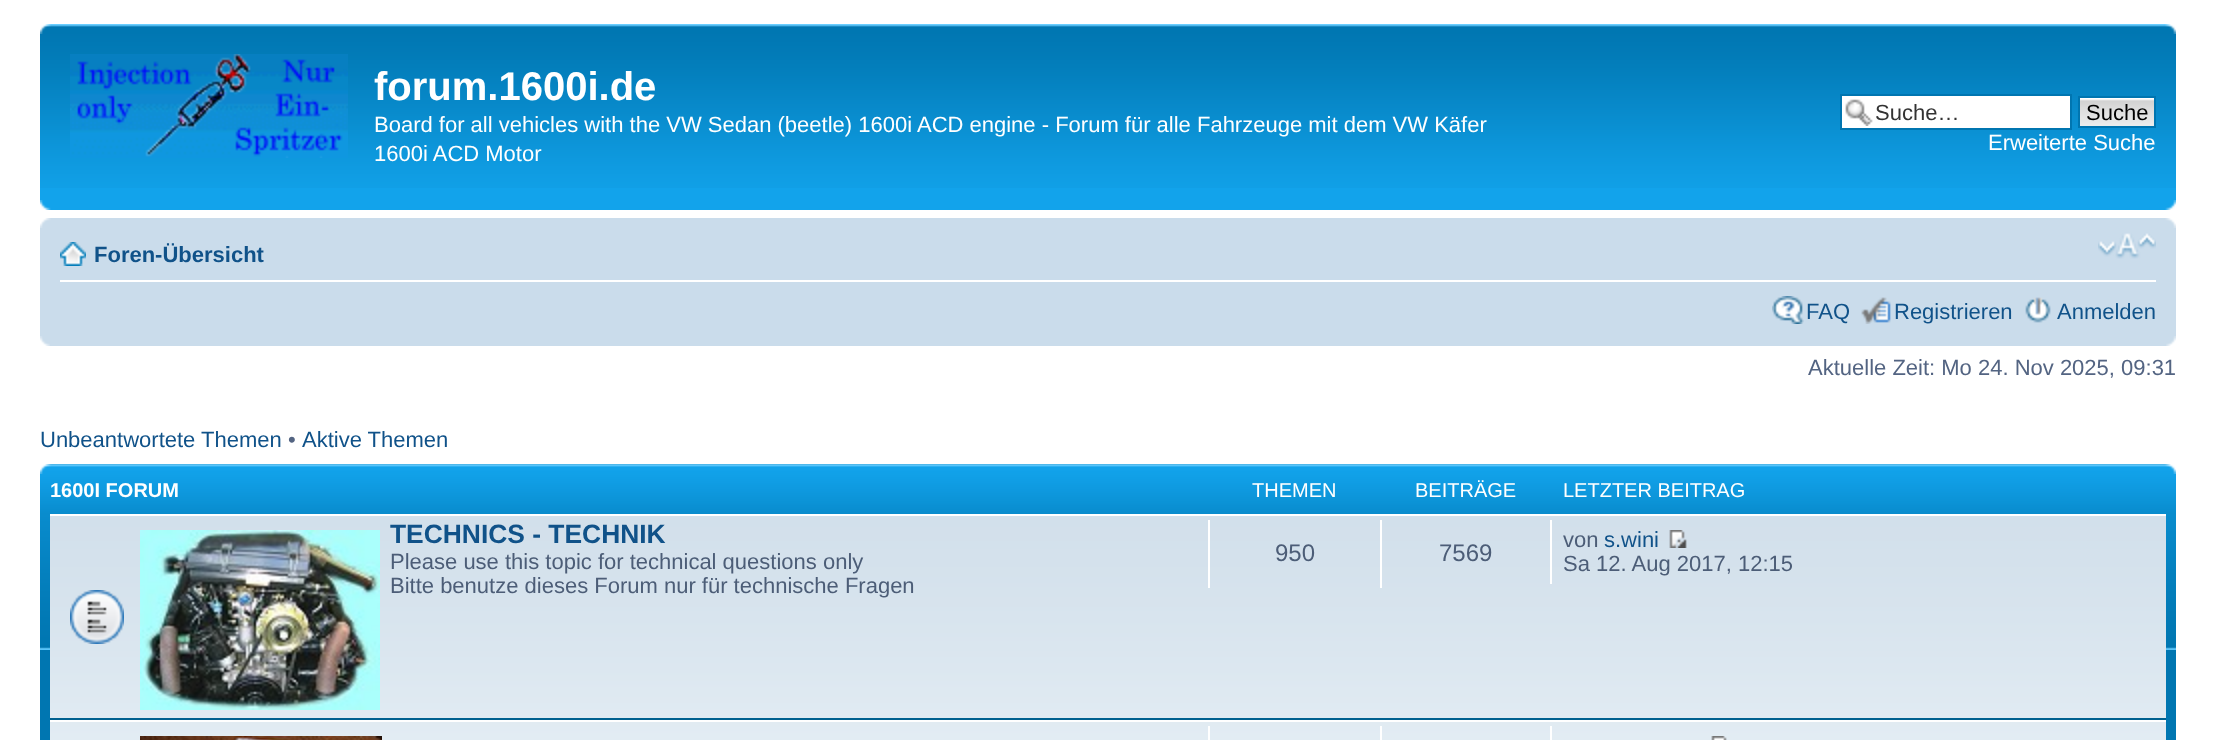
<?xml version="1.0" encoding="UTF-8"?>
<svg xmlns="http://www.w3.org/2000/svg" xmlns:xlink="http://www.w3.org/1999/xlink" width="2216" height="740">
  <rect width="100%" height="100%" fill="#ffffff" />
  <rect x="40" y="188" width="2136" height="22" fill="#12a3eb" />
  <image x="40" y="24" width="2136" height="164" xlink:href="image1.png" />
  <image x="40" y="24" width="11" height="10" xlink:href="image2.png" />
  <image x="2165" y="24" width="11" height="10" xlink:href="image3.png" />
  <image x="70" y="54" width="278" height="104" xlink:href="image4.png" />
  <rect x="1842" y="96" width="228" height="32" fill="#ffffff" />
  <image x="1845" y="99" width="28" height="27" xlink:href="image5.png" />
  <rect x="1841" y="95" width="230" height="34" fill="none" stroke="#0075b0" stroke-width="2" />
  <image x="2080" y="98" width="74" height="28" xlink:href="image6.png" />
  <rect x="2079" y="97" width="76" height="30" fill="none" stroke="#0075b0" stroke-width="2" />
  <image x="40" y="200" width="11" height="10" xlink:href="image7.png" />
  <image x="2165" y="200" width="11" height="10" xlink:href="image8.png" />
  <rect x="40" y="218" width="2136" height="128" fill="#cadceb" />
  <image x="40" y="218" width="11" height="10" xlink:href="image9.png" />
  <image x="2165" y="218" width="11" height="10" xlink:href="image10.png" />
  <rect x="60" y="280" width="2096" height="2" fill="#ffffff" />
  <image x="60" y="242" width="26" height="24" xlink:href="image11.png" />
  <image x="2098" y="233" width="58" height="26" xlink:href="image12.png" />
  <image x="1772" y="296" width="32" height="28" xlink:href="image13.png" />
  <image x="1861" y="297" width="30" height="27" xlink:href="image14.png" />
  <image x="2025" y="297" width="26" height="26" xlink:href="image15.png" />
  <image x="40" y="336" width="10" height="10" xlink:href="image16.png" />
  <image x="2166" y="336" width="10" height="10" xlink:href="image17.png" />
  <rect x="40" y="650" width="2136" height="90" fill="#0076b1" />
  <image x="40" y="464" width="2136" height="186" xlink:href="image18.png" />
  <image x="40" y="464" width="12" height="10" xlink:href="image19.png" />
  <image x="2164" y="464" width="12" height="10" xlink:href="image20.png" />
  <image x="50" y="516" width="2116" height="224" xlink:href="image21.png" />
  <rect x="50" y="514" width="2116" height="2" fill="#ffffff" />
  <rect x="50" y="718" width="2116" height="2" fill="#00608f" />
  <image x="70" y="590" width="54" height="54" xlink:href="image22.png" />
  <image x="140" y="530" width="240" height="180" xlink:href="image23.png" />
  <rect x="1208" y="520" width="2" height="68" fill="#ffffff" />
  <rect x="1380" y="520" width="2" height="68" fill="#ffffff" />
  <rect x="1550" y="520" width="2" height="64" fill="#ffffff" />
  <image x="1669" y="530" width="18" height="18" xlink:href="image24.png" />
  <rect x="50" y="720" width="2116" height="2" fill="#ffffff" />
  <image x="140" y="736" width="242" height="4" xlink:href="image25.png" />
  <rect x="1208" y="726" width="2" height="14" fill="#ffffff" />
  <rect x="1380" y="726" width="2" height="14" fill="#ffffff" />
  <rect x="1550" y="726" width="2" height="14" fill="#ffffff" />
  <image x="1711" y="736" width="16" height="4" xlink:href="image26.png" />
  <text x="374" y="100" style="font-family: Liberation Sans; font-size: 40px; font-weight: bold; fill: #ffffff">forum.1600i.de</text>
  <text x="374" y="132" style="font-family: Liberation Sans; font-size: 22px; fill: #ffffff">Board for all vehicles with the VW Sedan (beetle) 1600i ACD engine - Forum für alle Fahrzeuge mit dem VW Käfer</text>
  <text x="374" y="161" style="font-family: Liberation Sans; font-size: 22px; fill: #ffffff">1600i ACD Motor</text>
  <text x="1875" y="120" style="font-family: Liberation Sans; font-size: 22px; fill: #333333">Suche…</text>
  <text x="2086" y="120" style="font-family: Liberation Sans; font-size: 22px; fill: #000000">Suche</text>
  <text x="1988" y="150" style="font-family: Liberation Sans; font-size: 22px; fill: #ffffff">Erweiterte Suche</text>
  <text x="94" y="262" style="font-family: Liberation Sans; font-size: 22px; font-weight: bold; fill: #105289">Foren-Übersicht</text>
  <text x="1806" y="319" style="font-family: Liberation Sans; font-size: 22px; fill: #105289">FAQ</text>
  <text x="1894" y="319" style="font-family: Liberation Sans; font-size: 22px; fill: #105289">Registrieren</text>
  <text x="2057" y="319" style="font-family: Liberation Sans; font-size: 22px; fill: #105289">Anmelden</text>
  <text x="1808" y="375" style="font-family: Liberation Sans; font-size: 22px; fill: #536482">Aktuelle Zeit: Mo 24. Nov 2025, 09:31</text>
  <text x="40" y="447" style="font-family: Liberation Sans; font-size: 22px; fill: #105289">Unbeantwortete Themen</text>
  <text x="288" y="447" style="font-family: Liberation Sans; font-size: 22px; fill: #536482">•</text>
  <text x="302" y="447" style="font-family: Liberation Sans; font-size: 22px; fill: #105289">Aktive Themen</text>
  <text x="50" y="497" style="font-family: Liberation Sans; font-size: 20px; font-weight: bold; fill: #ffffff">1600I FORUM</text>
  <text x="1252" y="497" style="font-family: Liberation Sans; font-size: 20px; fill: #ffffff">THEMEN</text>
  <text x="1415" y="497" style="font-family: Liberation Sans; font-size: 20px; fill: #ffffff">BEITRÄGE</text>
  <text x="1563" y="497" style="font-family: Liberation Sans; font-size: 20px; fill: #ffffff">LETZTER BEITRAG</text>
  <text x="390" y="543" style="font-family: Liberation Sans; font-size: 26.4px; font-weight: bold; fill: #105289">TECHNICS - TECHNIK</text>
  <text x="390" y="569" style="font-family: Liberation Sans; font-size: 22px; fill: #4c5d77">Please use this topic for technical questions only</text>
  <text x="390" y="593" style="font-family: Liberation Sans; font-size: 22px; fill: #4c5d77">Bitte benutze dieses Forum nur für technische Fragen</text>
  <text x="1275" y="561" style="font-family: Liberation Sans; font-size: 24px; fill: #4c5d77">950</text>
  <text x="1439" y="561" style="font-family: Liberation Sans; font-size: 24px; fill: #4c5d77">7569</text>
  <text x="1563" y="547" style="font-family: Liberation Sans; font-size: 22px; fill: #4c5d77">von</text>
  <text x="1604" y="547" style="font-family: Liberation Sans; font-size: 22px; fill: #105289">s.wini</text>
  <text x="1563" y="571" style="font-family: Liberation Sans; font-size: 22px; fill: #4c5d77">Sa 12. Aug 2017, 12:15</text>
</svg>
